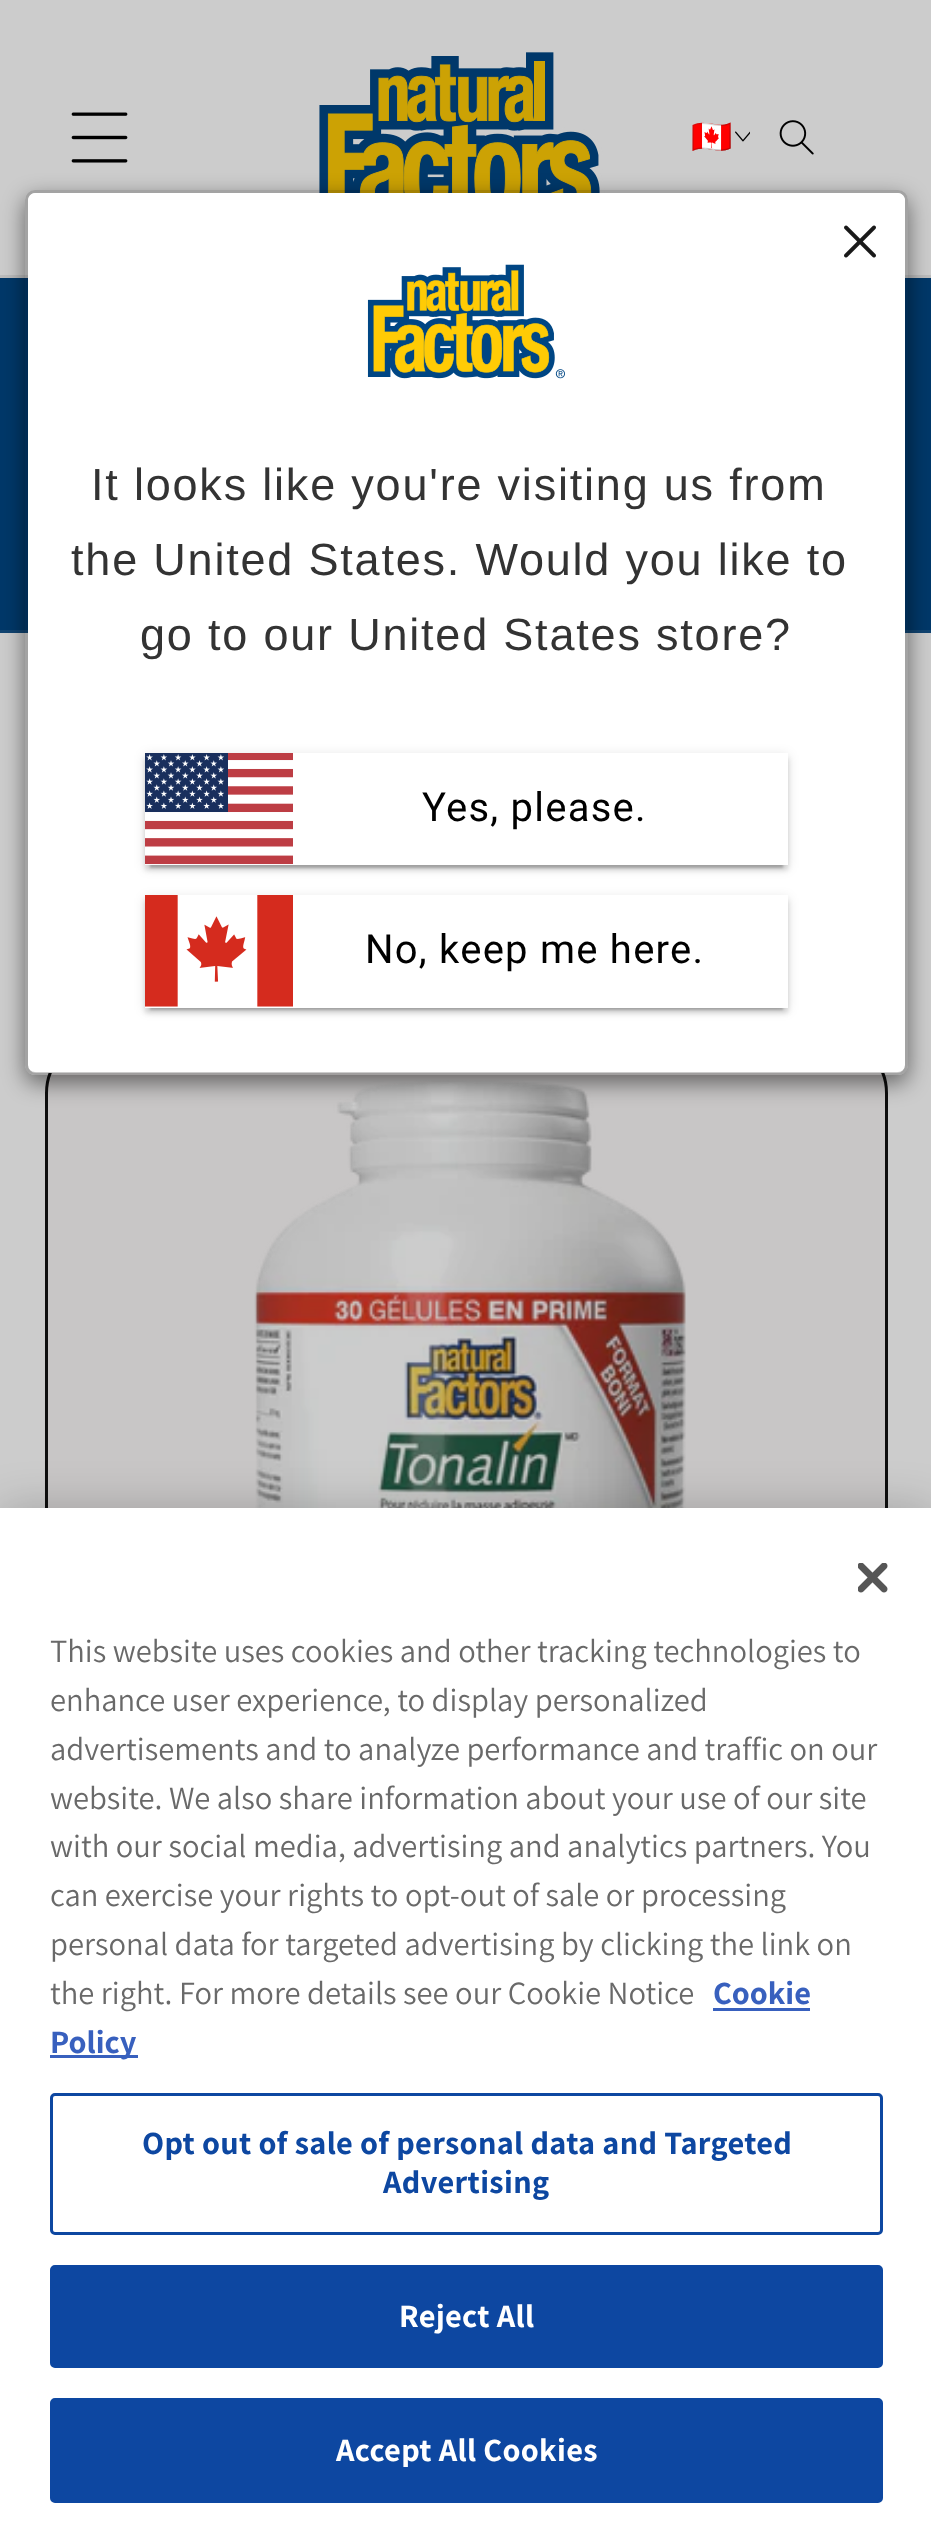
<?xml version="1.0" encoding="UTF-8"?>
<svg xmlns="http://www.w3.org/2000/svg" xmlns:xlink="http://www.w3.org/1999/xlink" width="931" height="2531">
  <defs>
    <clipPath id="clip1"><path d="M 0 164 h 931 v 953 h -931 z m 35 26 h 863 c 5.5 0 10 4.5 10 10 v 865 c 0 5.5 -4.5 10 -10 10 h -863 c -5.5 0 -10 -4.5 -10 -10 v -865 c 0 -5.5 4.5 -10 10 -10 z" clip-rule="evenodd" /></clipPath>
  </defs>
  <rect width="100%" height="100%" fill="#cccccc" />
  <rect y="275" width="931" height="3" fill="#bcbcbc" />
  <image x="71" y="112" width="57" height="51" xlink:href="image1.png" />
  <image x="319" y="52" width="286" height="141" xlink:href="image2.png" />
  <image x="735" y="131" width="15" height="11" xlink:href="image3.png" />
  <image x="779" y="120" width="35" height="35" xlink:href="image4.png" />
  <rect y="278" width="931" height="352" fill="#013869" />
  <rect y="630" width="931" height="3" fill="#114471" />
  <rect x="46.5" y="1039.5" width="840" height="1304" rx="53.5" fill="#c8c6c6" stroke="#0e0e0e" stroke-width="3" />
  <image x="254" y="1080" width="432" height="428" xlink:href="image9.png" />
  <g clip-path="url(#clip1)">
    <rect x="25" y="198" width="883" height="885" rx="10" fill="#000000" fill-opacity="0.5" filter="blur(11px)" />
  </g>
  <rect x="28" y="193" width="877" height="880" rx="8" fill="#ffffff" />
  <rect x="26.5" y="191.5" width="880" height="882" rx="8.5" fill="none" stroke="#000000" stroke-opacity="0.2" stroke-width="3" />
  <path d="M 36 193 h 861 c 4.5 0 8 3.5 8 8 v 222 h -877 v -222 c 0 -4.5 3.5 -8 8 -8 z" fill="#ffffff" />
  <image x="844" y="225" width="32" height="33" xlink:href="image5.png" />
  <image x="367" y="264" width="198" height="115" xlink:href="image6.png" />
  <rect x="145" y="755" width="643" height="113" fill="#000000" fill-opacity="0.12" filter="blur(6px)" />
  <rect x="150" y="765" width="633" height="103" fill="#000000" fill-opacity="0.2" filter="blur(1px)" />
  <rect x="145" y="758" width="643" height="112" fill="#000000" fill-opacity="0.14" filter="blur(2.5px)" />
  <rect x="145" y="753" width="643" height="112" fill="#ffffff" />
  <image x="145" y="753" width="148" height="112" xlink:href="image7.png" />
  <rect x="145" y="898" width="643" height="112" fill="#000000" fill-opacity="0.12" filter="blur(6px)" />
  <rect x="150" y="908" width="633" height="102" fill="#000000" fill-opacity="0.2" filter="blur(1px)" />
  <rect x="145" y="900" width="643" height="113" fill="#000000" fill-opacity="0.14" filter="blur(2.5px)" />
  <rect x="145" y="895" width="643" height="113" fill="#ffffff" />
  <image x="145" y="895" width="148" height="112" xlink:href="image8.png" />
  <rect y="1508" width="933" height="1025" fill="#000000" fill-opacity="0.2" filter="blur(22.5px)" />
  <rect y="1508" width="931" height="1023" fill="#ffffff" />
  <image x="858" y="1563" width="30" height="30" xlink:href="image10.png" />
  <rect x="713" y="2008" width="97" height="3" fill="#3860be" />
  <rect x="50" y="2055" width="88" height="3" fill="#3860be" />
  <rect x="51.5" y="2094.5" width="830" height="139" rx="3.5" fill="none" stroke="#0d47a1" stroke-width="3" />
  <rect x="51.5" y="2266.5" width="830" height="100" rx="3.5" fill="#0d47a1" stroke="#0d47a1" stroke-width="3" />
  <rect x="51.5" y="2399.5" width="830" height="102" rx="3.5" fill="#0d47a1" stroke="#0d47a1" stroke-width="3" />
  <text x="691" y="148" style="font-family: Noto Color Emoji; font-size: 33px; letter-spacing: 3px; fill: #000000">🇨🇦</text>
  <text x="91" y="500" style="font-family: Liberation Sans; font-size: 45px; letter-spacing: 1.8px; fill: #333333">It looks like you're visiting us from</text>
  <text x="71" y="575" style="font-family: Liberation Sans; font-size: 45px; letter-spacing: 1.8px; fill: #333333">the United States. Would you like to</text>
  <text x="140" y="650" style="font-family: Liberation Sans; font-size: 45px; letter-spacing: 1.8px; fill: #333333">go to our United States store?</text>
  <text x="422" y="821" style="font-family: Roboto; font-size: 40px; letter-spacing: 1.25px; fill: #000000">Yes, please.</text>
  <text x="365" y="963" style="font-family: Roboto; font-size: 40px; letter-spacing: 1.25px; fill: #000000">No, keep me here.</text>
  <text x="50" y="1662" style="font-family: Assistant; font-size: 32.5px; fill: #696969">This website uses cookies and other tracking technologies to</text>
  <text x="50" y="1711" style="font-family: Assistant; font-size: 32.5px; fill: #696969">enhance user experience, to display personalized</text>
  <text x="50" y="1760" style="font-family: Assistant; font-size: 32.5px; fill: #696969">advertisements and to analyze performance and traffic on our</text>
  <text x="50" y="1809" style="font-family: Assistant; font-size: 32.5px; fill: #696969">website. We also share information about your use of our site</text>
  <text x="50" y="1857" style="font-family: Assistant; font-size: 32.5px; fill: #696969">with our social media, advertising and analytics partners. You</text>
  <text x="50" y="1906" style="font-family: Assistant; font-size: 32.5px; fill: #696969">can exercise your rights to opt-out of sale or processing</text>
  <text x="50" y="1955" style="font-family: Assistant; font-size: 32.5px; fill: #696969">personal data for targeted advertising by clicking the link on</text>
  <text x="50" y="2004" style="font-family: Assistant; font-size: 32.5px; fill: #696969">the right. For more details see our Cookie Notice</text>
  <text x="713" y="2004" style="font-family: Assistant; font-size: 32.5px; font-weight: bold; fill: #3860be">Cookie</text>
  <text x="50" y="2053" style="font-family: Assistant; font-size: 32.5px; font-weight: bold; fill: #3860be">Policy</text>
  <text x="142" y="2154" style="font-family: Assistant; font-size: 32.5px; font-weight: bold; letter-spacing: 0.35px; fill: #0d47a1">Opt out of sale of personal data and Targeted</text>
  <text x="383" y="2193" style="font-family: Assistant; font-size: 32.5px; font-weight: bold; letter-spacing: 0.35px; fill: #0d47a1">Advertising</text>
  <text x="399" y="2327" style="font-family: Assistant; font-size: 32.5px; font-weight: bold; letter-spacing: 0.35px; fill: #ffffff">Reject All</text>
  <text x="336" y="2461" style="font-family: Assistant; font-size: 32.5px; font-weight: bold; letter-spacing: 0.35px; fill: #ffffff">Accept All Cookies</text>
</svg>
